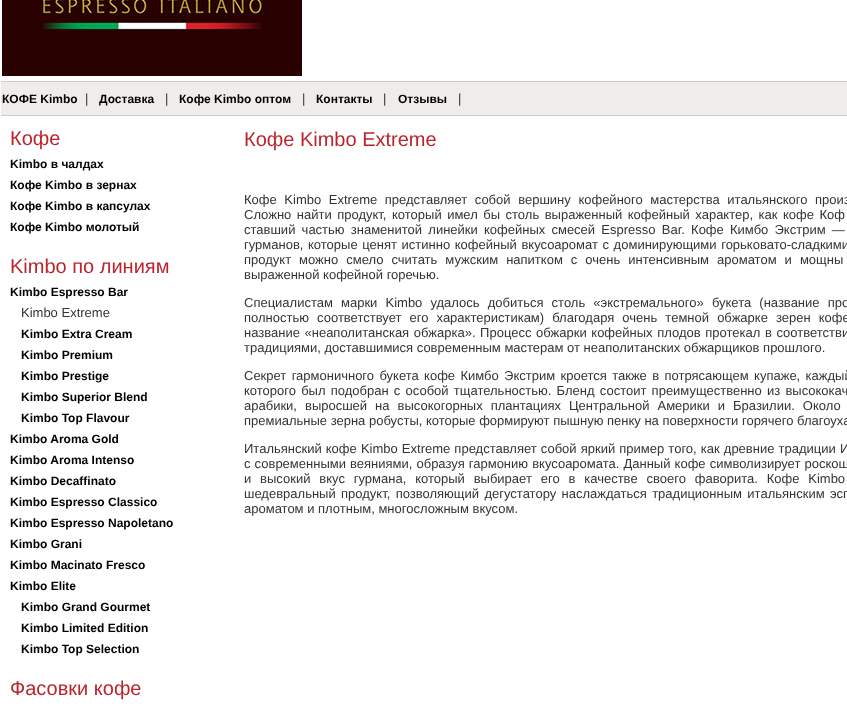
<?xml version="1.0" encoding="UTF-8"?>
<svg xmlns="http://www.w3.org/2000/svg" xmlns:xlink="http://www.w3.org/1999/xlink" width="847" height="706">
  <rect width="100%" height="100%" fill="#ffffff" />
  <image x="2" y="0" width="300" height="76" xlink:href="image1.png" />
  <rect x="1" y="82" width="846" height="33" fill="#efede9" />
  <rect x="1" y="81" width="846" height="1" fill="#cccccc" />
  <rect x="1" y="115" width="846" height="1" fill="#cccccc" />
  <text x="2" y="103" style="font-family: Liberation Sans; font-size: 12px; font-weight: bold; fill: #000000">КОФЕ Kimbo</text>
  <text x="85" y="103" style="font-family: Liberation Sans; font-size: 13px; fill: #333333">|</text>
  <text x="99" y="103" style="font-family: Liberation Sans; font-size: 12px; font-weight: bold; fill: #000000">Доставка</text>
  <text x="165" y="103" style="font-family: Liberation Sans; font-size: 13px; fill: #333333">|</text>
  <text x="179" y="103" style="font-family: Liberation Sans; font-size: 12px; font-weight: bold; fill: #000000">Кофе Kimbo оптом</text>
  <text x="302" y="103" style="font-family: Liberation Sans; font-size: 13px; fill: #333333">|</text>
  <text x="316" y="103" style="font-family: Liberation Sans; font-size: 12px; font-weight: bold; fill: #000000">Контакты</text>
  <text x="383" y="103" style="font-family: Liberation Sans; font-size: 13px; fill: #333333">|</text>
  <text x="398" y="103" style="font-family: Liberation Sans; font-size: 12px; font-weight: bold; fill: #000000">Отзывы</text>
  <text x="458" y="103" style="font-family: Liberation Sans; font-size: 13px; fill: #333333">|</text>
  <text x="10" y="145" style="font-family: Liberation Sans; font-size: 20px; fill: #bd232d">Кофе</text>
  <text x="10" y="168" style="font-family: Liberation Sans; font-size: 12px; font-weight: bold; fill: #000000">Kimbo в чалдах</text>
  <text x="10" y="189" style="font-family: Liberation Sans; font-size: 12px; font-weight: bold; fill: #000000">Кофе Kimbo в зернах</text>
  <text x="10" y="210" style="font-family: Liberation Sans; font-size: 12px; font-weight: bold; fill: #000000">Кофе Kimbo в капсулах</text>
  <text x="10" y="231" style="font-family: Liberation Sans; font-size: 12px; font-weight: bold; fill: #000000">Кофе Kimbo молотый</text>
  <text x="10" y="273" style="font-family: Liberation Sans; font-size: 20px; fill: #bd232d">Kimbo по линиям</text>
  <text x="10" y="296" style="font-family: Liberation Sans; font-size: 12px; font-weight: bold; fill: #000000">Kimbo Espresso Bar</text>
  <text x="21" y="317" style="font-family: Liberation Sans; font-size: 13px; fill: #333333">Kimbo Extreme</text>
  <text x="21" y="338" style="font-family: Liberation Sans; font-size: 12px; font-weight: bold; fill: #000000">Kimbo Extra Cream</text>
  <text x="21" y="359" style="font-family: Liberation Sans; font-size: 12px; font-weight: bold; fill: #000000">Kimbo Premium</text>
  <text x="21" y="380" style="font-family: Liberation Sans; font-size: 12px; font-weight: bold; fill: #000000">Kimbo Prestige</text>
  <text x="21" y="401" style="font-family: Liberation Sans; font-size: 12px; font-weight: bold; fill: #000000">Kimbo Superior Blend</text>
  <text x="21" y="422" style="font-family: Liberation Sans; font-size: 12px; font-weight: bold; fill: #000000">Kimbo Top Flavour</text>
  <text x="10" y="443" style="font-family: Liberation Sans; font-size: 12px; font-weight: bold; fill: #000000">Kimbo Aroma Gold</text>
  <text x="10" y="464" style="font-family: Liberation Sans; font-size: 12px; font-weight: bold; fill: #000000">Kimbo Aroma Intenso</text>
  <text x="10" y="485" style="font-family: Liberation Sans; font-size: 12px; font-weight: bold; fill: #000000">Kimbo Decaffinato</text>
  <text x="10" y="506" style="font-family: Liberation Sans; font-size: 12px; font-weight: bold; fill: #000000">Kimbo Espresso Classico</text>
  <text x="10" y="527" style="font-family: Liberation Sans; font-size: 12px; font-weight: bold; fill: #000000">Kimbo Espresso Napoletano</text>
  <text x="10" y="548" style="font-family: Liberation Sans; font-size: 12px; font-weight: bold; fill: #000000">Kimbo Grani</text>
  <text x="10" y="569" style="font-family: Liberation Sans; font-size: 12px; font-weight: bold; fill: #000000">Kimbo Macinato Fresco</text>
  <text x="10" y="590" style="font-family: Liberation Sans; font-size: 12px; font-weight: bold; fill: #000000">Kimbo Elite</text>
  <text x="21" y="611" style="font-family: Liberation Sans; font-size: 12px; font-weight: bold; fill: #000000">Kimbo Grand Gourmet</text>
  <text x="21" y="632" style="font-family: Liberation Sans; font-size: 12px; font-weight: bold; fill: #000000">Kimbo Limited Edition</text>
  <text x="21" y="653" style="font-family: Liberation Sans; font-size: 12px; font-weight: bold; fill: #000000">Kimbo Top Selection</text>
  <text x="10" y="695" style="font-family: Liberation Sans; font-size: 20px; fill: #bd232d">Фасовки кофе</text>
  <text x="244" y="146" style="font-family: Liberation Sans; font-size: 20px; fill: #bd232d">Кофе Kimbo Extreme</text>
  <text x="244" y="204" word-spacing="4" style="font-family: Liberation Sans; font-size: 13px; fill: #333333">Кофе Kimbo Extreme представляет собой вершину кофейного мастерства итальянского произ</text>
  <text x="244" y="219" word-spacing="1.9" style="font-family: Liberation Sans; font-size: 13px; fill: #333333">Сложно найти продукт, который имел бы столь выраженный кофейный характер, как кофе Коф</text>
  <text x="244" y="234" word-spacing="2.6" style="font-family: Liberation Sans; font-size: 13px; fill: #333333">ставший частью знаменитой линейки кофейных смесей Espresso Bar. Кофе Кимбо Экстрим —</text>
  <text x="244" y="249" word-spacing="1" style="font-family: Liberation Sans; font-size: 13px; fill: #333333">гурманов, которые ценят истинно кофейный вкусоаромат с доминирующими горьковато-сладкими</text>
  <text x="244" y="264" word-spacing="4.4" style="font-family: Liberation Sans; font-size: 13px; fill: #333333">продукт можно смело считать мужским напитком с очень интенсивным ароматом и мощны</text>
  <text x="244" y="279" style="font-family: Liberation Sans; font-size: 13px; fill: #333333">выраженной кофейной горечью.</text>
  <text x="244" y="307" word-spacing="4.5" style="font-family: Liberation Sans; font-size: 13px; fill: #333333">Специалистам марки Kimbo удалось добиться столь «экстремального» букета (название про</text>
  <text x="244" y="322" word-spacing="4.5" style="font-family: Liberation Sans; font-size: 13px; fill: #333333">полностью соответствует его характеристикам) благодаря очень темной обжарке зерен кофе</text>
  <text x="244" y="337" word-spacing="1" style="font-family: Liberation Sans; font-size: 13px; fill: #333333">название «неаполитанская обжарка». Процесс обжарки кофейных плодов протекал в соответстви</text>
  <text x="244" y="352" style="font-family: Liberation Sans; font-size: 13px; fill: #333333">традициями, доставшимися современным мастерам от неаполитанских обжарщиков прошлого.</text>
  <text x="244" y="380" word-spacing="1.75" style="font-family: Liberation Sans; font-size: 13px; fill: #333333">Секрет гармоничного букета кофе Кимбо Экстрим кроется также в потрясающем купаже, каждый</text>
  <text x="244" y="395" word-spacing="1.6" style="font-family: Liberation Sans; font-size: 13px; fill: #333333">которого был подобран с особой тщательностью. Бленд состоит преимущественно из высококач</text>
  <text x="244" y="410" word-spacing="4.4" style="font-family: Liberation Sans; font-size: 13px; fill: #333333">арабики, выросшей на высокогорных плантациях Центральной Америки и Бразилии. Около</text>
  <text x="244" y="425" style="font-family: Liberation Sans; font-size: 13px; fill: #333333">премиальные зерна робусты, которые формируют пышную пенку на поверхности горячего благоуха</text>
  <text x="244" y="453" word-spacing="0.5" style="font-family: Liberation Sans; font-size: 13px; fill: #333333">Итальянский кофе Kimbo Extreme представляет собой яркий пример того, как древние традиции И</text>
  <text x="244" y="468" word-spacing="0.5" style="font-family: Liberation Sans; font-size: 13px; fill: #333333">с современными веяниями, образуя гармонию вкусоаромата. Данный кофе символизирует роскош</text>
  <text x="244" y="483" word-spacing="5.25" style="font-family: Liberation Sans; font-size: 13px; fill: #333333">и высокий вкус гурмана, который выбирает его в качестве своего фаворита. Кофе Kimbo</text>
  <text x="244" y="498" word-spacing="1.75" style="font-family: Liberation Sans; font-size: 13px; fill: #333333">шедевральный продукт, позволяющий дегустатору наслаждаться традиционным итальянским эсп</text>
  <text x="244" y="513" style="font-family: Liberation Sans; font-size: 13px; fill: #333333">ароматом и плотным, многосложным вкусом.</text>
</svg>
